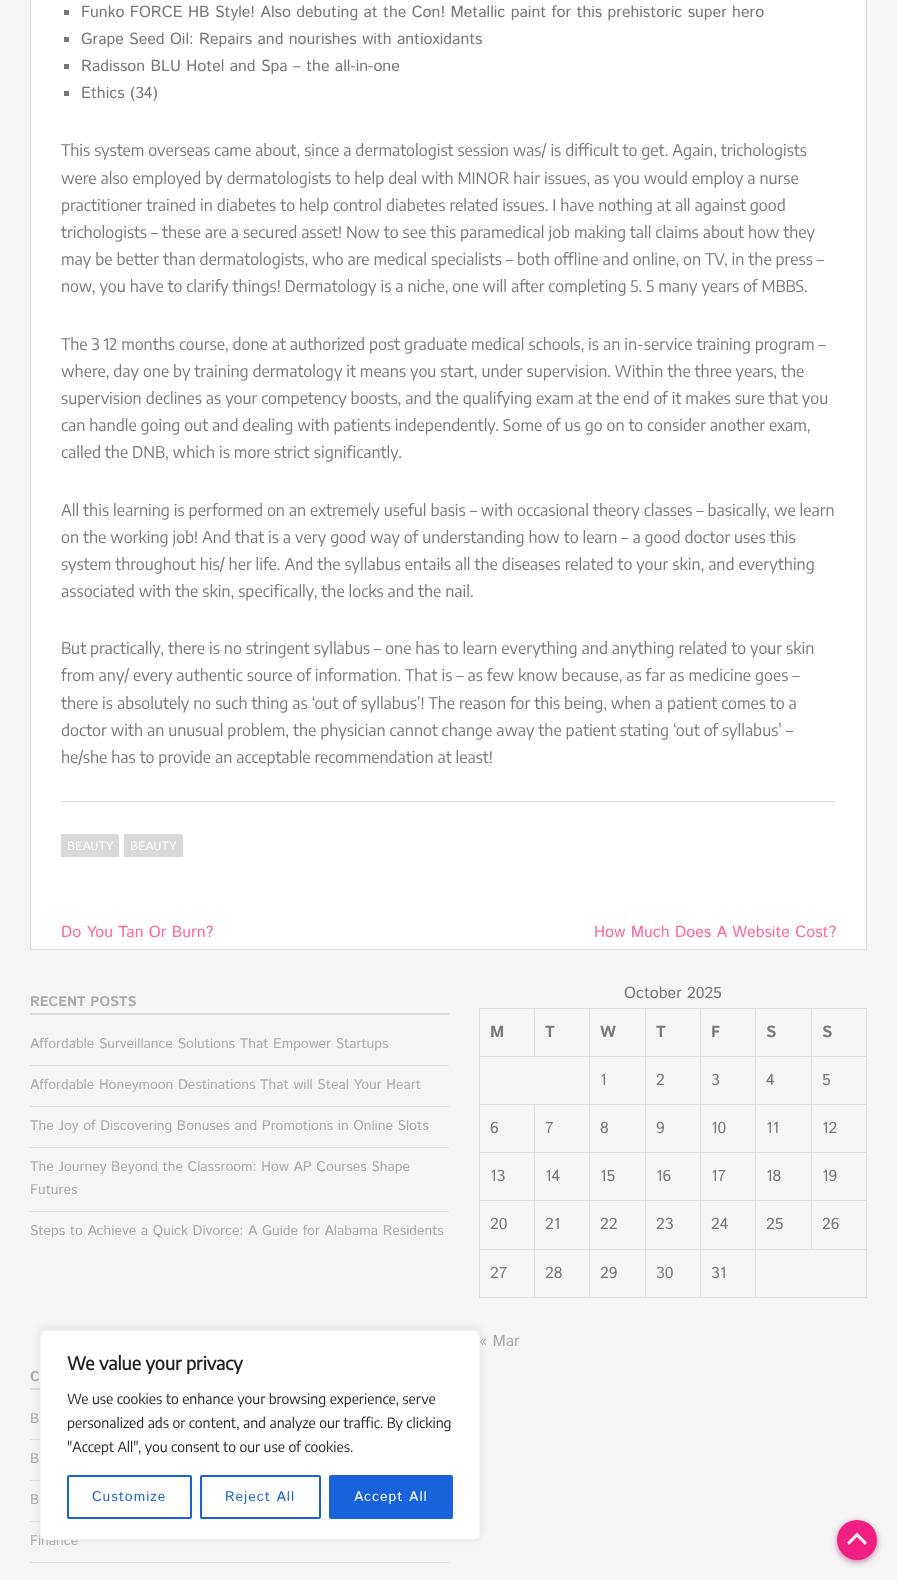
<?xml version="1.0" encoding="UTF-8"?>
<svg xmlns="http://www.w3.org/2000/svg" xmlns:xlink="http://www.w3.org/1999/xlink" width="897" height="1580">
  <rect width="100%" height="100%" fill="#f5f5f5" />
  <rect x="30.5" y="-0.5" width="836" height="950" fill="#ffffff" stroke="#dddddd" />
  <rect x="61" y="801" width="775" height="1" fill="#dddddd" />
  <rect x="64" y="10" width="5" height="5" fill="#777777" />
  <rect x="64" y="37" width="5" height="5" fill="#777777" />
  <rect x="64" y="64" width="5" height="5" fill="#777777" />
  <rect x="64" y="91" width="5" height="5" fill="#777777" />
  <rect x="61" y="834" width="58" height="23" fill="#d9d9d9" />
  <rect x="124" y="834" width="59" height="23" fill="#d9d9d9" />
  <rect x="30" y="1013" width="419" height="2" fill="#dddddd" />
  <rect x="30" y="1065" width="419" height="1" fill="#dddddd" />
  <rect x="30" y="1106" width="419" height="1" fill="#dddddd" />
  <rect x="30" y="1147" width="419" height="1" fill="#dddddd" />
  <rect x="30" y="1211" width="419" height="1" fill="#dddddd" />
  <rect x="811" y="1008" width="56" height="1" fill="#dddddd" />
  <rect x="811" y="1056" width="56" height="1" fill="#dddddd" />
  <rect x="811" y="1104" width="56" height="1" fill="#dddddd" />
  <rect x="811" y="1152" width="56" height="1" fill="#dddddd" />
  <rect x="811" y="1200" width="56" height="1" fill="#dddddd" />
  <rect x="755" y="1249" width="112" height="1" fill="#dddddd" />
  <rect x="811" y="1200" width="1" height="50" fill="#dddddd" />
  <rect x="755" y="1200" width="57" height="1" fill="#dddddd" />
  <rect x="811" y="1152" width="1" height="49" fill="#dddddd" />
  <rect x="755" y="1152" width="57" height="1" fill="#dddddd" />
  <rect x="811" y="1104" width="1" height="49" fill="#dddddd" />
  <rect x="755" y="1104" width="57" height="1" fill="#dddddd" />
  <rect x="811" y="1056" width="1" height="49" fill="#dddddd" />
  <rect x="755" y="1056" width="57" height="1" fill="#dddddd" />
  <rect x="811" y="1008" width="1" height="49" fill="#dddddd" />
  <rect x="755" y="1008" width="57" height="1" fill="#dddddd" />
  <rect x="866" y="1249" width="1" height="49" fill="#dddddd" />
  <rect x="755" y="1297" width="112" height="1" fill="#dddddd" />
  <rect x="755" y="1249" width="1" height="49" fill="#dddddd" />
  <rect x="700" y="1249" width="56" height="1" fill="#dddddd" />
  <rect x="755" y="1200" width="1" height="50" fill="#dddddd" />
  <rect x="700" y="1200" width="56" height="1" fill="#dddddd" />
  <rect x="755" y="1152" width="1" height="49" fill="#dddddd" />
  <rect x="700" y="1152" width="56" height="1" fill="#dddddd" />
  <rect x="755" y="1104" width="1" height="49" fill="#dddddd" />
  <rect x="700" y="1104" width="56" height="1" fill="#dddddd" />
  <rect x="755" y="1056" width="1" height="49" fill="#dddddd" />
  <rect x="700" y="1056" width="56" height="1" fill="#dddddd" />
  <rect x="755" y="1008" width="1" height="49" fill="#dddddd" />
  <rect x="700" y="1008" width="56" height="1" fill="#dddddd" />
  <rect x="700" y="1297" width="56" height="1" fill="#dddddd" />
  <rect x="700" y="1249" width="1" height="49" fill="#dddddd" />
  <rect x="645" y="1249" width="56" height="1" fill="#dddddd" />
  <rect x="700" y="1200" width="1" height="50" fill="#dddddd" />
  <rect x="645" y="1200" width="56" height="1" fill="#dddddd" />
  <rect x="700" y="1152" width="1" height="49" fill="#dddddd" />
  <rect x="645" y="1152" width="56" height="1" fill="#dddddd" />
  <rect x="700" y="1104" width="1" height="49" fill="#dddddd" />
  <rect x="645" y="1104" width="56" height="1" fill="#dddddd" />
  <rect x="700" y="1056" width="1" height="49" fill="#dddddd" />
  <rect x="645" y="1056" width="56" height="1" fill="#dddddd" />
  <rect x="700" y="1008" width="1" height="49" fill="#dddddd" />
  <rect x="645" y="1008" width="56" height="1" fill="#dddddd" />
  <rect x="645" y="1297" width="56" height="1" fill="#dddddd" />
  <rect x="645" y="1249" width="1" height="49" fill="#dddddd" />
  <rect x="589" y="1249" width="57" height="1" fill="#dddddd" />
  <rect x="645" y="1200" width="1" height="50" fill="#dddddd" />
  <rect x="589" y="1200" width="57" height="1" fill="#dddddd" />
  <rect x="645" y="1152" width="1" height="49" fill="#dddddd" />
  <rect x="589" y="1152" width="57" height="1" fill="#dddddd" />
  <rect x="645" y="1104" width="1" height="49" fill="#dddddd" />
  <rect x="589" y="1104" width="57" height="1" fill="#dddddd" />
  <rect x="645" y="1056" width="1" height="49" fill="#dddddd" />
  <rect x="589" y="1056" width="57" height="1" fill="#dddddd" />
  <rect x="645" y="1008" width="1" height="49" fill="#dddddd" />
  <rect x="589" y="1008" width="57" height="1" fill="#dddddd" />
  <rect x="589" y="1297" width="57" height="1" fill="#dddddd" />
  <rect x="589" y="1249" width="1" height="49" fill="#dddddd" />
  <rect x="534" y="1249" width="56" height="1" fill="#dddddd" />
  <rect x="589" y="1200" width="1" height="50" fill="#dddddd" />
  <rect x="534" y="1200" width="56" height="1" fill="#dddddd" />
  <rect x="589" y="1152" width="1" height="49" fill="#dddddd" />
  <rect x="534" y="1152" width="56" height="1" fill="#dddddd" />
  <rect x="589" y="1104" width="1" height="49" fill="#dddddd" />
  <rect x="534" y="1104" width="56" height="1" fill="#dddddd" />
  <rect x="589" y="1056" width="1" height="49" fill="#dddddd" />
  <rect x="479" y="1056" width="111" height="1" fill="#dddddd" />
  <rect x="589" y="1008" width="1" height="49" fill="#dddddd" />
  <rect x="534" y="1008" width="56" height="1" fill="#dddddd" />
  <rect x="534" y="1008" width="1" height="49" fill="#dddddd" />
  <rect x="479" y="1008" width="56" height="1" fill="#dddddd" />
  <rect x="534" y="1297" width="56" height="1" fill="#dddddd" />
  <rect x="534" y="1249" width="1" height="49" fill="#dddddd" />
  <rect x="479" y="1249" width="56" height="1" fill="#dddddd" />
  <rect x="534" y="1200" width="1" height="50" fill="#dddddd" />
  <rect x="479" y="1200" width="56" height="1" fill="#dddddd" />
  <rect x="534" y="1152" width="1" height="49" fill="#dddddd" />
  <rect x="479" y="1152" width="56" height="1" fill="#dddddd" />
  <rect x="534" y="1104" width="1" height="49" fill="#dddddd" />
  <rect x="479" y="1104" width="56" height="1" fill="#dddddd" />
  <rect x="479" y="1297" width="56" height="1" fill="#dddddd" />
  <rect x="479" y="1249" width="1" height="49" fill="#dddddd" />
  <rect x="479" y="1200" width="1" height="50" fill="#dddddd" />
  <rect x="479" y="1152" width="1" height="49" fill="#dddddd" />
  <rect x="479" y="1104" width="1" height="49" fill="#dddddd" />
  <rect x="479" y="1056" width="1" height="49" fill="#dddddd" />
  <rect x="479" y="1008" width="1" height="49" fill="#dddddd" />
  <rect x="866" y="1200" width="1" height="50" fill="#dddddd" />
  <rect x="866" y="1152" width="1" height="49" fill="#dddddd" />
  <rect x="866" y="1104" width="1" height="49" fill="#dddddd" />
  <rect x="866" y="1056" width="1" height="49" fill="#dddddd" />
  <rect x="866" y="1008" width="1" height="49" fill="#dddddd" />
  <rect x="30" y="1388" width="10" height="2" fill="#dddddd" />
  <rect x="30" y="1439" width="10" height="1" fill="#dddddd" />
  <rect x="30" y="1480" width="10" height="1" fill="#dddddd" />
  <rect x="30" y="1521" width="10" height="1" fill="#dddddd" />
  <rect x="30" y="1562" width="419" height="1" fill="#dddddd" />
  <rect x="40" y="1329" width="440" height="210" rx="6" fill="#acabab" fill-opacity="0.3" filter="blur(5px)" />
  <rect x="837" y="1522" width="40" height="40" rx="20" fill="#940c4c" fill-opacity="0.5" filter="blur(3px)" />
  <circle cx="857" cy="1540" r="20" fill="#f21f82" />
  <path d="M 865 1545 l -8 -8 l -8 8 l -2 -2.5 l 10 -10 l 10 10 z" fill="#eeeeee" />
  <text x="81" y="17" style="font-family: Istok Web; font-size: 16px; fill: #777777">Funko FORCE HB Style! Also debuting at the Con! Metallic paint for this prehistoric super hero</text>
  <text x="81" y="44" style="font-family: Istok Web; font-size: 16px; fill: #777777">Grape Seed Oil: Repairs and nourishes with antioxidants</text>
  <text x="81" y="71" style="font-family: Istok Web; font-size: 16px; fill: #777777">Radisson BLU Hotel and Spa – the all-in-one</text>
  <text x="81" y="98" style="font-family: Istok Web; font-size: 16px; fill: #777777">Ethics (34)</text>
  <text x="61" y="156" style="font-family: Encode Sans Condensed; font-size: 16px; font-weight: 100; fill: #777777">This system overseas came about, since a dermatologist session was/ is difficult to get. Again, trichologists</text>
  <text x="61" y="184" style="font-family: Encode Sans Condensed; font-size: 16px; font-weight: 100; fill: #777777">were also employed by dermatologists to help deal with MINOR hair issues, as you would employ a nurse</text>
  <text x="61" y="211" style="font-family: Encode Sans Condensed; font-size: 16px; font-weight: 100; fill: #777777">practitioner trained in diabetes to help control diabetes related issues. I have nothing at all against good</text>
  <text x="61" y="238" style="font-family: Encode Sans Condensed; font-size: 16px; font-weight: 100; fill: #777777">trichologists – these are a secured asset! Now to see this paramedical job making tall claims about how they</text>
  <text x="61" y="265" style="font-family: Encode Sans Condensed; font-size: 16px; font-weight: 100; fill: #777777">may be better than dermatologists, who are medical specialists – both offline and online, on TV, in the press –</text>
  <text x="61" y="292" style="font-family: Encode Sans Condensed; font-size: 16px; font-weight: 100; fill: #777777">now, you have to clarify things! Dermatology is a niche, one will after completing 5. 5 many years of MBBS.</text>
  <text x="61" y="350" style="font-family: Encode Sans Condensed; font-size: 16px; font-weight: 100; fill: #777777">The 3 12 months course, done at authorized post graduate medical schools, is an in-service training program –</text>
  <text x="61" y="377" style="font-family: Encode Sans Condensed; font-size: 16px; font-weight: 100; fill: #777777">where, day one by training dermatology it means you start, under supervision. Within the three years, the</text>
  <text x="61" y="404" style="font-family: Encode Sans Condensed; font-size: 16px; font-weight: 100; fill: #777777">supervision declines as your competency boosts, and the qualifying exam at the end of it makes sure that you</text>
  <text x="61" y="431" style="font-family: Encode Sans Condensed; font-size: 16px; font-weight: 100; fill: #777777">can handle going out and dealing with patients independently. Some of us go on to consider another exam,</text>
  <text x="61" y="458" style="font-family: Encode Sans Condensed; font-size: 16px; font-weight: 100; fill: #777777">called the DNB, which is more strict significantly.</text>
  <text x="61" y="516" style="font-family: Encode Sans Condensed; font-size: 16px; font-weight: 100; fill: #777777">All this learning is performed on an extremely useful basis – with occasional theory classes – basically, we learn</text>
  <text x="61" y="543" style="font-family: Encode Sans Condensed; font-size: 16px; font-weight: 100; fill: #777777">on the working job! And that is a very good way of understanding how to learn – a good doctor uses this</text>
  <text x="61" y="570" style="font-family: Encode Sans Condensed; font-size: 16px; font-weight: 100; fill: #777777">system throughout his/ her life. And the syllabus entails all the diseases related to your skin, and everything</text>
  <text x="61" y="597" style="font-family: Encode Sans Condensed; font-size: 16px; font-weight: 100; fill: #777777">associated with the skin, specifically, the locks and the nail.</text>
  <text x="61" y="654" style="font-family: Encode Sans Condensed; font-size: 16px; font-weight: 100; fill: #777777">But practically, there is no stringent syllabus – one has to learn everything and anything related to your skin</text>
  <text x="61" y="681" style="font-family: Encode Sans Condensed; font-size: 16px; font-weight: 100; fill: #777777">from any/ every authentic source of information. That is – as few know because, as far as medicine goes –</text>
  <text x="61" y="709" style="font-family: Encode Sans Condensed; font-size: 16px; font-weight: 100; fill: #777777">there is absolutely no such thing as ‘out of syllabus’! The reason for this being, when a patient comes to a</text>
  <text x="61" y="736" style="font-family: Encode Sans Condensed; font-size: 16px; font-weight: 100; fill: #777777">doctor with an unusual problem, the physician cannot change away the patient stating ‘out of syllabus’ –</text>
  <text x="61" y="763" style="font-family: Encode Sans Condensed; font-size: 16px; font-weight: 100; fill: #777777">he/she has to provide an acceptable recommendation at least!</text>
  <text x="67" y="850" style="font-family: Istok Web; font-size: 12px; fill: #ffffff">BEAUTY</text>
  <text x="130" y="850" style="font-family: Istok Web; font-size: 12px; fill: #ffffff">BEAUTY</text>
  <text x="61" y="937" style="font-family: Istok Web; font-size: 16px; fill: #ff6699">Do You Tan Or Burn?</text>
  <text x="594" y="937" style="font-family: Istok Web; font-size: 16px; fill: #ff6699">How Much Does A Website Cost?</text>
  <text x="30" y="1006" style="font-family: Istok Web; font-size: 14px; font-weight: bold; fill: #aaaaaa">RECENT POSTS</text>
  <text x="30" y="1048" style="font-family: Istok Web; font-size: 14px; fill: #aaaaaa">Affordable Surveillance Solutions That Empower Startups</text>
  <text x="30" y="1089" style="font-family: Istok Web; font-size: 14px; fill: #aaaaaa">Affordable Honeymoon Destinations That will Steal Your Heart</text>
  <text x="30" y="1130" style="font-family: Istok Web; font-size: 14px; fill: #aaaaaa">The Joy of Discovering Bonuses and Promotions in Online Slots</text>
  <text x="30" y="1171" style="font-family: Istok Web; font-size: 14px; fill: #aaaaaa">The Journey Beyond the Classroom: How AP Courses Shape</text>
  <text x="30" y="1194" style="font-family: Istok Web; font-size: 14px; fill: #aaaaaa">Futures</text>
  <text x="30" y="1235" style="font-family: Istok Web; font-size: 14px; fill: #aaaaaa">Steps to Achieve a Quick Divorce: A Guide for Alabama Residents</text>
  <text x="624" y="998" style="font-family: Istok Web; font-size: 16px; fill: #777777">October 2025</text>
  <text x="490" y="1037" style="font-family: Istok Web; font-size: 16px; font-weight: bold; fill: #777777">M</text>
  <text x="545" y="1037" style="font-family: Istok Web; font-size: 16px; font-weight: bold; fill: #777777">T</text>
  <text x="600" y="1037" style="font-family: Istok Web; font-size: 16px; font-weight: bold; fill: #777777">W</text>
  <text x="656" y="1037" style="font-family: Istok Web; font-size: 16px; font-weight: bold; fill: #777777">T</text>
  <text x="711" y="1037" style="font-family: Istok Web; font-size: 16px; font-weight: bold; fill: #777777">F</text>
  <text x="766" y="1037" style="font-family: Istok Web; font-size: 16px; font-weight: bold; fill: #777777">S</text>
  <text x="822" y="1037" style="font-family: Istok Web; font-size: 16px; font-weight: bold; fill: #777777">S</text>
  <text x="600" y="1085" style="font-family: Istok Web; font-size: 16px; fill: #777777">1</text>
  <text x="656" y="1085" style="font-family: Istok Web; font-size: 16px; fill: #777777">2</text>
  <text x="711" y="1085" style="font-family: Istok Web; font-size: 16px; fill: #777777">3</text>
  <text x="766" y="1085" style="font-family: Istok Web; font-size: 16px; fill: #777777">4</text>
  <text x="822" y="1085" style="font-family: Istok Web; font-size: 16px; fill: #777777">5</text>
  <text x="490" y="1133" style="font-family: Istok Web; font-size: 16px; fill: #777777">6</text>
  <text x="545" y="1133" style="font-family: Istok Web; font-size: 16px; fill: #777777">7</text>
  <text x="600" y="1133" style="font-family: Istok Web; font-size: 16px; fill: #777777">8</text>
  <text x="656" y="1133" style="font-family: Istok Web; font-size: 16px; fill: #777777">9</text>
  <text x="711" y="1133" style="font-family: Istok Web; font-size: 16px; fill: #777777">10</text>
  <text x="766" y="1133" style="font-family: Istok Web; font-size: 16px; fill: #777777">11</text>
  <text x="822" y="1133" style="font-family: Istok Web; font-size: 16px; fill: #777777">12</text>
  <text x="490" y="1181" style="font-family: Istok Web; font-size: 16px; fill: #777777">13</text>
  <text x="545" y="1181" style="font-family: Istok Web; font-size: 16px; fill: #777777">14</text>
  <text x="600" y="1181" style="font-family: Istok Web; font-size: 16px; fill: #777777">15</text>
  <text x="656" y="1181" style="font-family: Istok Web; font-size: 16px; fill: #777777">16</text>
  <text x="711" y="1181" style="font-family: Istok Web; font-size: 16px; fill: #777777">17</text>
  <text x="766" y="1181" style="font-family: Istok Web; font-size: 16px; fill: #777777">18</text>
  <text x="822" y="1181" style="font-family: Istok Web; font-size: 16px; fill: #777777">19</text>
  <text x="490" y="1229" style="font-family: Istok Web; font-size: 16px; fill: #777777">20</text>
  <text x="545" y="1229" style="font-family: Istok Web; font-size: 16px; fill: #777777">21</text>
  <text x="600" y="1229" style="font-family: Istok Web; font-size: 16px; fill: #777777">22</text>
  <text x="656" y="1229" style="font-family: Istok Web; font-size: 16px; fill: #777777">23</text>
  <text x="711" y="1229" style="font-family: Istok Web; font-size: 16px; fill: #777777">24</text>
  <text x="766" y="1229" style="font-family: Istok Web; font-size: 16px; fill: #777777">25</text>
  <text x="822" y="1229" style="font-family: Istok Web; font-size: 16px; fill: #777777">26</text>
  <text x="490" y="1278" style="font-family: Istok Web; font-size: 16px; fill: #777777">27</text>
  <text x="545" y="1278" style="font-family: Istok Web; font-size: 16px; fill: #777777">28</text>
  <text x="600" y="1278" style="font-family: Istok Web; font-size: 16px; fill: #777777">29</text>
  <text x="656" y="1278" style="font-family: Istok Web; font-size: 16px; fill: #777777">30</text>
  <text x="711" y="1278" style="font-family: Istok Web; font-size: 16px; fill: #777777">31</text>
  <text x="479" y="1346" style="font-family: Istok Web; font-size: 16px; fill: #aaaaaa">« Mar</text>
  <text x="30" y="1381" style="font-family: Istok Web; font-size: 14px; font-weight: bold; fill: #aaaaaa">C</text>
  <text x="30" y="1423" style="font-family: Istok Web; font-size: 14px; fill: #aaaaaa">B</text>
  <text x="30" y="1463" style="font-family: Istok Web; font-size: 14px; fill: #aaaaaa">B</text>
  <text x="30" y="1504" style="font-family: Istok Web; font-size: 14px; fill: #aaaaaa">B</text>
  <text x="30" y="1545" style="font-family: Istok Web; font-size: 14px; fill: #aaaaaa">Finance</text>
  <rect x="40.5" y="1330.5" width="439" height="209" rx="5.5" fill="#ffffff" stroke="#f4f4f4" />
  <text x="67" y="1370" style="font-family: Encode Sans Condensed; font-size: 18px; font-weight: bold; fill: #212121">We value your privacy</text>
  <text x="67" y="1404" style="font-family: Encode Sans Condensed; font-size: 14px; font-weight: 100; fill: #212121">We use cookies to enhance your browsing experience, serve</text>
  <text x="67" y="1428" style="font-family: Encode Sans Condensed; font-size: 14px; font-weight: 100; fill: #212121">personalized ads or content, and analyze our traffic. By clicking</text>
  <text x="67" y="1452" style="font-family: Encode Sans Condensed; font-size: 14px; font-weight: 100; fill: #212121">"Accept All", you consent to our use of cookies.</text>
  <rect x="68" y="1476" width="123" height="42" rx="1" fill="none" stroke="#1863dc" stroke-width="2" />
  <text x="92" y="1501" style="font-family: Istok Web; font-size: 14px; letter-spacing: 1px; fill: #1863dc">Customize</text>
  <rect x="201" y="1476" width="119" height="42" rx="1" fill="none" stroke="#1863dc" stroke-width="2" />
  <text x="225" y="1501" style="font-family: Istok Web; font-size: 14px; letter-spacing: 1px; fill: #1863dc">Reject All</text>
  <rect x="330" y="1476" width="122" height="42" rx="1" fill="#1863dc" stroke="#1863dc" stroke-width="2" />
  <text x="354" y="1501" style="font-family: Istok Web; font-size: 14px; letter-spacing: 1px; fill: #ffffff">Accept All</text>
</svg>
